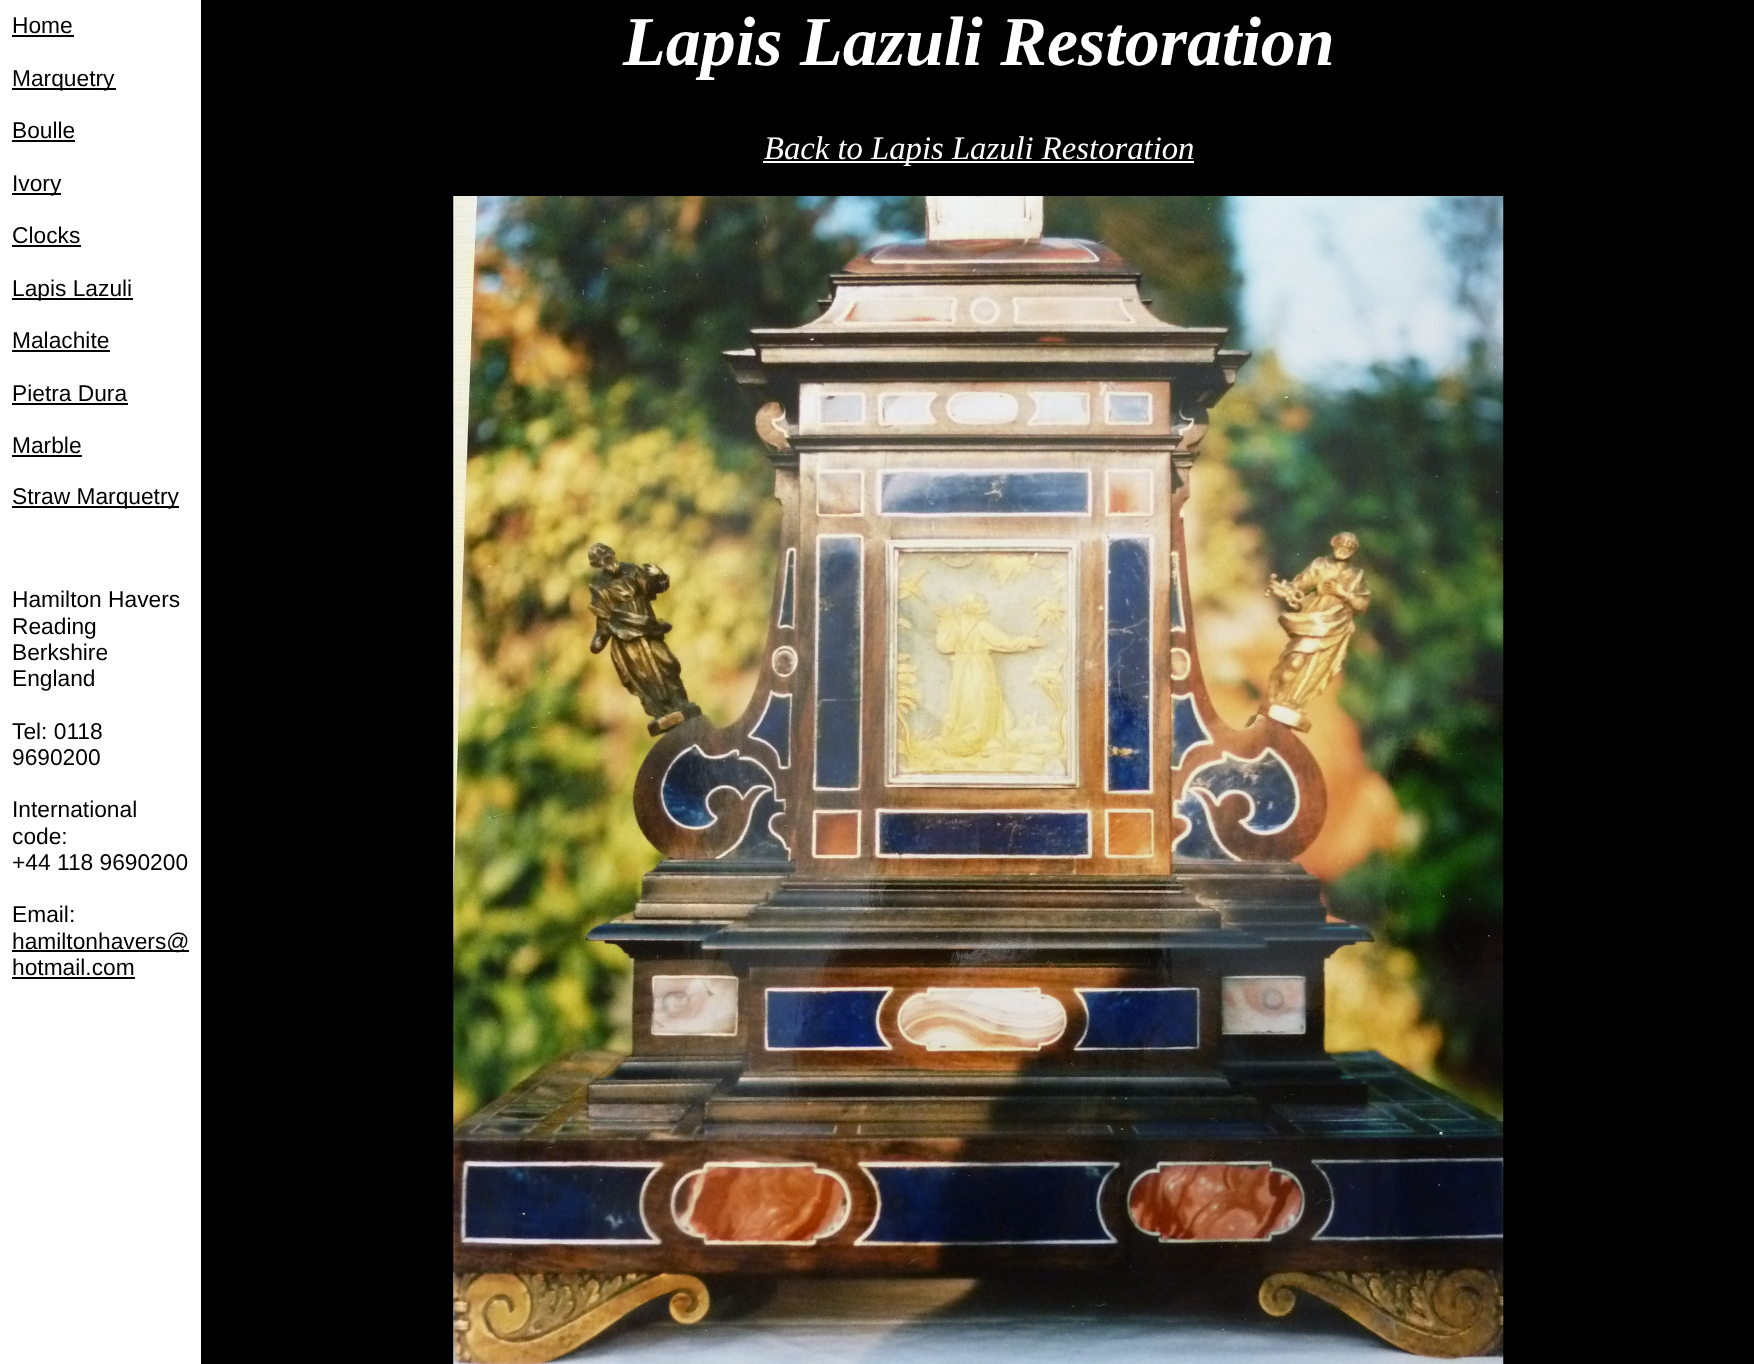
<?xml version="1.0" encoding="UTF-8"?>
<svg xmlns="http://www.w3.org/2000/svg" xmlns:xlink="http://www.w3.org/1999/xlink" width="1754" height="1364">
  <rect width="100%" height="100%" fill="#ffffff" />
  <rect x="12" y="35" width="62" height="2" fill="#000000" />
  <rect x="12" y="88" width="104" height="2" fill="#000000" />
  <rect x="12" y="140" width="63" height="2" fill="#000000" />
  <rect x="12" y="193" width="49" height="2" fill="#000000" />
  <rect x="12" y="245" width="69" height="2" fill="#000000" />
  <rect x="12" y="298" width="121" height="2" fill="#000000" />
  <rect x="12" y="350" width="98" height="2" fill="#000000" />
  <rect x="12" y="403" width="116" height="2" fill="#000000" />
  <rect x="12" y="455" width="70" height="2" fill="#000000" />
  <rect x="12" y="506" width="167" height="2" fill="#000000" />
  <rect x="12" y="950" width="177" height="2" fill="#000000" />
  <rect x="12" y="977" width="123" height="2" fill="#000000" />
  <rect x="201" width="1553" height="1364" fill="#000000" />
  <rect x="763" y="161" width="431" height="2" fill="#ffffff" />
  <image x="453" y="196" width="1051" height="1168" xlink:href="image1.png" />
  <text x="12" y="33" style="font-family: Liberation Sans; font-size: 22.75px; fill: #000000">Home</text>
  <text x="12" y="86" style="font-family: Liberation Sans; font-size: 22.75px; fill: #000000">Marquetry</text>
  <text x="12" y="138" style="font-family: Liberation Sans; font-size: 22.75px; fill: #000000">Boulle</text>
  <text x="12" y="191" style="font-family: Liberation Sans; font-size: 22.75px; fill: #000000">Ivory</text>
  <text x="12" y="243" style="font-family: Liberation Sans; font-size: 22.75px; fill: #000000">Clocks</text>
  <text x="12" y="296" style="font-family: Liberation Sans; font-size: 22.75px; fill: #000000">Lapis Lazuli</text>
  <text x="12" y="348" style="font-family: Liberation Sans; font-size: 22.75px; fill: #000000">Malachite</text>
  <text x="12" y="401" style="font-family: Liberation Sans; font-size: 22.75px; fill: #000000">Pietra Dura</text>
  <text x="12" y="453" style="font-family: Liberation Sans; font-size: 22.75px; fill: #000000">Marble</text>
  <text x="12" y="504" style="font-family: Liberation Sans; font-size: 22.75px; fill: #000000">Straw Marquetry</text>
  <text x="12" y="607" style="font-family: Liberation Sans; font-size: 22.75px; fill: #000000">Hamilton Havers</text>
  <text x="12" y="634" style="font-family: Liberation Sans; font-size: 22.75px; fill: #000000">Reading</text>
  <text x="12" y="660" style="font-family: Liberation Sans; font-size: 22.75px; fill: #000000">Berkshire</text>
  <text x="12" y="686" style="font-family: Liberation Sans; font-size: 22.75px; fill: #000000">England</text>
  <text x="12" y="739" style="font-family: Liberation Sans; font-size: 22.75px; fill: #000000">Tel: 0118</text>
  <text x="12" y="765" style="font-family: Liberation Sans; font-size: 22.75px; fill: #000000">9690200</text>
  <text x="12" y="817" style="font-family: Liberation Sans; font-size: 22.75px; fill: #000000">International</text>
  <text x="12" y="844" style="font-family: Liberation Sans; font-size: 22.75px; fill: #000000">code:</text>
  <text x="12" y="870" style="font-family: Liberation Sans; font-size: 22.75px; fill: #000000">+44 118 9690200</text>
  <text x="12" y="922" style="font-family: Liberation Sans; font-size: 22.75px; fill: #000000">Email:</text>
  <text x="12" y="949" style="font-family: Liberation Sans; font-size: 22.75px; fill: #000000">hamiltonhavers@</text>
  <text x="12" y="975" style="font-family: Liberation Sans; font-size: 22.75px; fill: #000000">hotmail.com</text>
  <text x="623" y="65" style="font-family: Liberation Serif; font-size: 70px; font-weight: bold; font-style: italic; fill: #ffffff">Lapis Lazuli Restoration</text>
  <text x="764" y="159" style="font-family: Liberation Serif; font-size: 32.7px; font-style: italic; fill: #ffffff">Back to Lapis Lazuli Restoration</text>
</svg>
